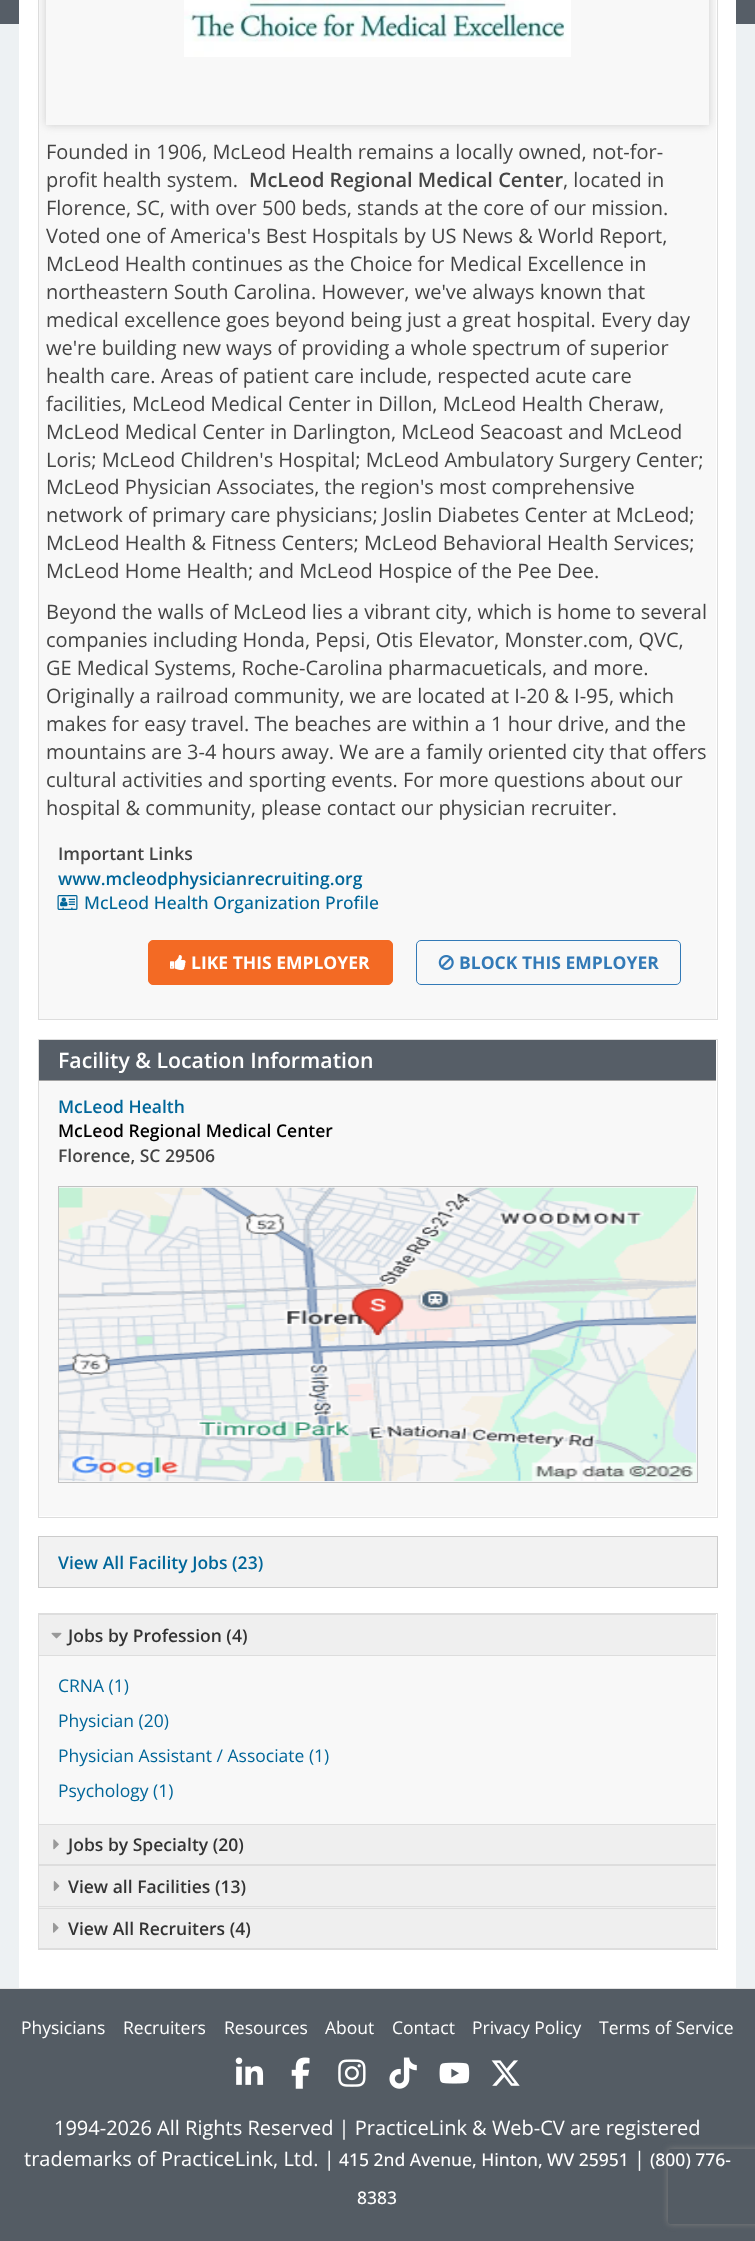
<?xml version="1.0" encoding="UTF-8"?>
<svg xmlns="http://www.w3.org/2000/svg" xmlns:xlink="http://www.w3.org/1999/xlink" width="755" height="2241">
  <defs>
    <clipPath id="clip1"><path d="M 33 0 h 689 v 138 h -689 z m 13 -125 h 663 v 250 h -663 z" clip-rule="evenodd" /></clipPath>
    <clipPath id="clip2"><path d="M 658 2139 h 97 v 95 h -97 z m 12.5 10 h 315 c 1.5 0 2.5 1 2.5 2.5 v 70 c 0 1.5 -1 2.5 -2.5 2.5 h -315 c -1.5 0 -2.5 -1 -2.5 -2.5 v -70 c 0 -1.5 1 -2.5 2.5 -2.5 z" clip-rule="evenodd" /></clipPath>
  </defs>
  <rect width="100%" height="100%" fill="#545c64" />
  <rect y="24" width="755" height="1964" fill="#edf1f3" />
  <rect width="755" height="24" fill="#565e67" />
  <rect x="19" width="717" height="1988" fill="#ffffff" />
  <rect x="38.5" y="-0.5" width="679" height="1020" fill="none" stroke="#dddddd" />
  <rect x="39" width="677" height="1019" fill="#f8f8f8" />
  <g clip-path="url(#clip1)">
    <rect x="46" y="-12" width="663" height="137" fill="#cccccc" filter="blur(4px)" />
  </g>
  <image x="184" y="0" width="387" height="57" xlink:href="image1.png" />
  <image x="57" y="895" width="21" height="15" xlink:href="image2.png" />
  <rect x="148.5" y="940.5" width="244" height="44" rx="4.5" fill="#f36a24" stroke="#f36a24" />
  <image x="170" y="955" width="16" height="15" xlink:href="image3.png" />
  <rect x="416.5" y="940.5" width="264" height="44" rx="4.5" fill="none" stroke="#337ab7" />
  <image x="438" y="955" width="16" height="15" xlink:href="image4.png" />
  <rect x="38.5" y="1039.5" width="679" height="478" fill="none" stroke="#dddddd" />
  <rect x="39" y="1040" width="677" height="40" fill="#565e67" />
  <rect x="39" y="1080" width="677" height="1" fill="#a1a1a1" />
  <rect x="39" y="1081" width="677" height="435" fill="#f8f8f8" />
  <rect x="58.5" y="1186.5" width="639" height="296" fill="none" stroke="#c2c2c2" />
  <image x="58" y="1187" width="639" height="295" xlink:href="image5.png" />
  <rect x="38.5" y="1536.5" width="679" height="51" fill="#f2f2f2" stroke="#cccccc" />
  <rect x="38.5" y="1613.5" width="679" height="336" fill="none" stroke="#dddddd" />
  <rect x="39" y="1615" width="677" height="40" fill="#efefef" />
  <rect x="39" y="1614" width="677" height="1" fill="#dddddd" />
  <rect x="39" y="1655" width="677" height="1" fill="#dddddd" />
  <image x="51" y="1632" width="11" height="7" xlink:href="image6.png" />
  <rect x="39" y="1656" width="677" height="168" fill="#f8f8f8" />
  <rect x="39" y="1825" width="677" height="39" fill="#efefef" />
  <rect x="39" y="1824" width="677" height="1" fill="#dddddd" />
  <rect x="39" y="1864" width="677" height="2" fill="#dddddd" />
  <image x="53" y="1839" width="6" height="11" xlink:href="image7.png" />
  <rect x="39" y="1866" width="677" height="42" fill="#efefef" />
  <rect x="39" y="1906" width="677" height="1" fill="#dddddd" />
  <image x="53" y="1881" width="7" height="10" xlink:href="image8.png" />
  <rect x="39" y="1909" width="677" height="39" fill="#efefef" />
  <rect x="39" y="1908" width="677" height="1" fill="#dddddd" />
  <rect x="39" y="1948" width="677" height="1" fill="#dddddd" />
  <image x="53" y="1922" width="6" height="11" xlink:href="image9.png" />
  <rect y="1988" width="755" height="1" fill="#e1e1e1" />
  <image x="235" y="2057" width="29" height="28" xlink:href="image10.png" />
  <image x="291" y="2057" width="19" height="32" xlink:href="image11.png" />
  <image x="338" y="2059" width="28" height="28" xlink:href="image12.png" />
  <image x="389" y="2057" width="28" height="32" xlink:href="image13.png" />
  <image x="439" y="2062" width="31" height="22" xlink:href="image14.png" />
  <image x="491" y="2060" width="29" height="26" xlink:href="image15.png" />
  <g clip-path="url(#clip2)">
    <rect x="668" y="2149" width="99" height="75" rx="2.5" fill="#808080" filter="blur(3px)" />
  </g>
  <text x="46" y="159" style="font-family: Open Sans; font-size: 20px; fill: #444444">Founded in 1906, McLeod Health remains a locally owned, not-for-</text>
  <text x="46" y="187" style="font-family: Open Sans; font-size: 20px; fill: #444444">profit health system.</text>
  <text x="249" y="187" style="font-family: Open Sans; font-size: 20px; font-weight: 600; fill: #444444">McLeod Regional Medical Center</text>
  <text x="563" y="187" style="font-family: Open Sans; font-size: 20px; fill: #444444">, located in</text>
  <text x="46" y="215" style="font-family: Open Sans; font-size: 20px; fill: #444444">Florence, SC, with over 500 beds, stands at the core of our mission.</text>
  <text x="46" y="243" style="font-family: Open Sans; font-size: 20px; fill: #444444">Voted one of America's Best Hospitals by US News &amp; World Report,</text>
  <text x="46" y="271" style="font-family: Open Sans; font-size: 20px; fill: #444444">McLeod Health continues as the Choice for Medical Excellence in</text>
  <text x="46" y="299" style="font-family: Open Sans; font-size: 20px; fill: #444444">northeastern South Carolina. However, we've always known that</text>
  <text x="46" y="327" style="font-family: Open Sans; font-size: 20px; fill: #444444">medical excellence goes beyond being just a great hospital. Every day</text>
  <text x="46" y="355" style="font-family: Open Sans; font-size: 20px; fill: #444444">we're building new ways of providing a whole spectrum of superior</text>
  <text x="46" y="383" style="font-family: Open Sans; font-size: 20px; fill: #444444">health care. Areas of patient care include, respected acute care</text>
  <text x="46" y="411" style="font-family: Open Sans; font-size: 20px; fill: #444444">facilities, McLeod Medical Center in Dillon, McLeod Health Cheraw,</text>
  <text x="46" y="439" style="font-family: Open Sans; font-size: 20px; fill: #444444">McLeod Medical Center in Darlington, McLeod Seacoast and McLeod</text>
  <text x="46" y="467" style="font-family: Open Sans; font-size: 20px; fill: #444444">Loris; McLeod Children's Hospital; McLeod Ambulatory Surgery Center;</text>
  <text x="46" y="494" style="font-family: Open Sans; font-size: 20px; fill: #444444">McLeod Physician Associates, the region's most comprehensive</text>
  <text x="46" y="522" style="font-family: Open Sans; font-size: 20px; fill: #444444">network of primary care physicians; Joslin Diabetes Center at McLeod;</text>
  <text x="46" y="550" style="font-family: Open Sans; font-size: 20px; fill: #444444">McLeod Health &amp; Fitness Centers; McLeod Behavioral Health Services;</text>
  <text x="46" y="578" style="font-family: Open Sans; font-size: 20px; fill: #444444">McLeod Home Health; and McLeod Hospice of the Pee Dee.</text>
  <text x="46" y="619" style="font-family: Open Sans; font-size: 20px; fill: #444444">Beyond the walls of McLeod lies a vibrant city, which is home to several</text>
  <text x="46" y="647" style="font-family: Open Sans; font-size: 20px; fill: #444444">companies including Honda, Pepsi, Otis Elevator, Monster.com, QVC,</text>
  <text x="46" y="675" style="font-family: Open Sans; font-size: 20px; fill: #444444">GE Medical Systems, Roche-Carolina pharmacueticals, and more.</text>
  <text x="46" y="703" style="font-family: Open Sans; font-size: 20px; fill: #444444">Originally a railroad community, we are located at I-20 &amp; I-95, which</text>
  <text x="46" y="731" style="font-family: Open Sans; font-size: 20px; fill: #444444">makes for easy travel. The beaches are within a 1 hour drive, and the</text>
  <text x="46" y="759" style="font-family: Open Sans; font-size: 20px; fill: #444444">mountains are 3-4 hours away. We are a family oriented city that offers</text>
  <text x="46" y="787" style="font-family: Open Sans; font-size: 20px; fill: #444444">cultural activities and sporting events. For more questions about our</text>
  <text x="46" y="815" style="font-family: Open Sans; font-size: 20px; fill: #444444">hospital &amp; community, please contact our physician recruiter.</text>
  <text x="58" y="860" style="font-family: Open Sans; font-size: 17.5px; font-weight: 600; fill: #444444">Important Links</text>
  <text x="58" y="885" style="font-family: Open Sans; font-size: 17.5px; font-weight: 600; fill: #006699">www.mcleodphysicianrecruiting.org</text>
  <text x="84" y="909" style="font-family: Open Sans; font-size: 17.5px; font-weight: 500; fill: #006699">McLeod Health Organization Profile</text>
  <text x="191" y="969" style="font-family: Open Sans; font-size: 17.5px; font-weight: bold; fill: #ffffff">LIKE THIS EMPLOYER</text>
  <text x="459" y="969" style="font-family: Open Sans; font-size: 17.5px; font-weight: bold; fill: #337ab7">BLOCK THIS EMPLOYER</text>
  <text x="58" y="1068" style="font-family: Open Sans; font-size: 21.25px; font-weight: 600; fill: #ffffff">Facility &amp; Location Information</text>
  <text x="58" y="1113" style="font-family: Open Sans; font-size: 17.5px; font-weight: 600; fill: #006699">McLeod Health</text>
  <text x="58" y="1137" style="font-family: Open Sans; font-size: 17.5px; font-weight: 600; fill: #000000">McLeod Regional Medical Center</text>
  <text x="58" y="1162" style="font-family: Open Sans; font-size: 17.5px; font-weight: 600; fill: #444444">Florence, SC 29506</text>
  <text x="58" y="1569" style="font-family: Open Sans; font-size: 17.5px; font-weight: 600; fill: #006699">View All Facility Jobs (23)</text>
  <text x="68" y="1642" style="font-family: Open Sans; font-size: 17.5px; font-weight: 600; fill: #333333">Jobs by Profession (4)</text>
  <text x="58" y="1692" style="font-family: Open Sans; font-size: 17.5px; fill: #006699">CRNA (1)</text>
  <text x="58" y="1727" style="font-family: Open Sans; font-size: 17.5px; fill: #006699">Physician (20)</text>
  <text x="58" y="1762" style="font-family: Open Sans; font-size: 17.5px; fill: #006699">Physician Assistant / Associate (1)</text>
  <text x="58" y="1797" style="font-family: Open Sans; font-size: 17.5px; fill: #006699">Psychology (1)</text>
  <text x="68" y="1851" style="font-family: Open Sans; font-size: 17.5px; font-weight: 600; fill: #333333">Jobs by Specialty (20)</text>
  <text x="68" y="1893" style="font-family: Open Sans; font-size: 17.5px; font-weight: 600; fill: #333333">View all Facilities (13)</text>
  <text x="68" y="1935" style="font-family: Open Sans; font-size: 17.5px; font-weight: 600; fill: #333333">View All Recruiters (4)</text>
  <text x="21" y="2034" style="font-family: Open Sans; font-size: 17.5px; fill: #ffffff">Physicians</text>
  <text x="123" y="2034" style="font-family: Open Sans; font-size: 17.5px; fill: #ffffff">Recruiters</text>
  <text x="224" y="2034" style="font-family: Open Sans; font-size: 17.5px; fill: #ffffff">Resources</text>
  <text x="325" y="2034" style="font-family: Open Sans; font-size: 17.5px; fill: #ffffff">About</text>
  <text x="392" y="2034" style="font-family: Open Sans; font-size: 17.5px; fill: #ffffff">Contact</text>
  <text x="472" y="2034" style="font-family: Open Sans; font-size: 17.5px; fill: #ffffff">Privacy Policy</text>
  <text x="599" y="2034" style="font-family: Open Sans; font-size: 17.5px; fill: #ffffff">Terms of Service</text>
  <text x="54" y="2135" style="font-family: Open Sans; font-size: 20px; fill: #ffffff">1994-2026 All Rights Reserved | PracticeLink &amp; Web-CV are registered</text>
  <text x="24" y="2166" style="font-family: Open Sans; font-size: 20px; fill: #ffffff">trademarks of PracticeLink, Ltd. |</text>
  <text x="339" y="2166" style="font-family: Open Sans; font-size: 17.5px; font-weight: 500; fill: #ffffff">415 2nd Avenue, Hinton, WV 25951</text>
  <text x="634" y="2166" style="font-family: Open Sans; font-size: 20px; fill: #ffffff">|</text>
  <text x="650" y="2166" style="font-family: Open Sans; font-size: 17.5px; font-weight: 500; fill: #ffffff">(800) 776-</text>
  <text x="357" y="2204" style="font-family: Open Sans; font-size: 17.5px; font-weight: 500; fill: #ffffff">8383</text>
</svg>
